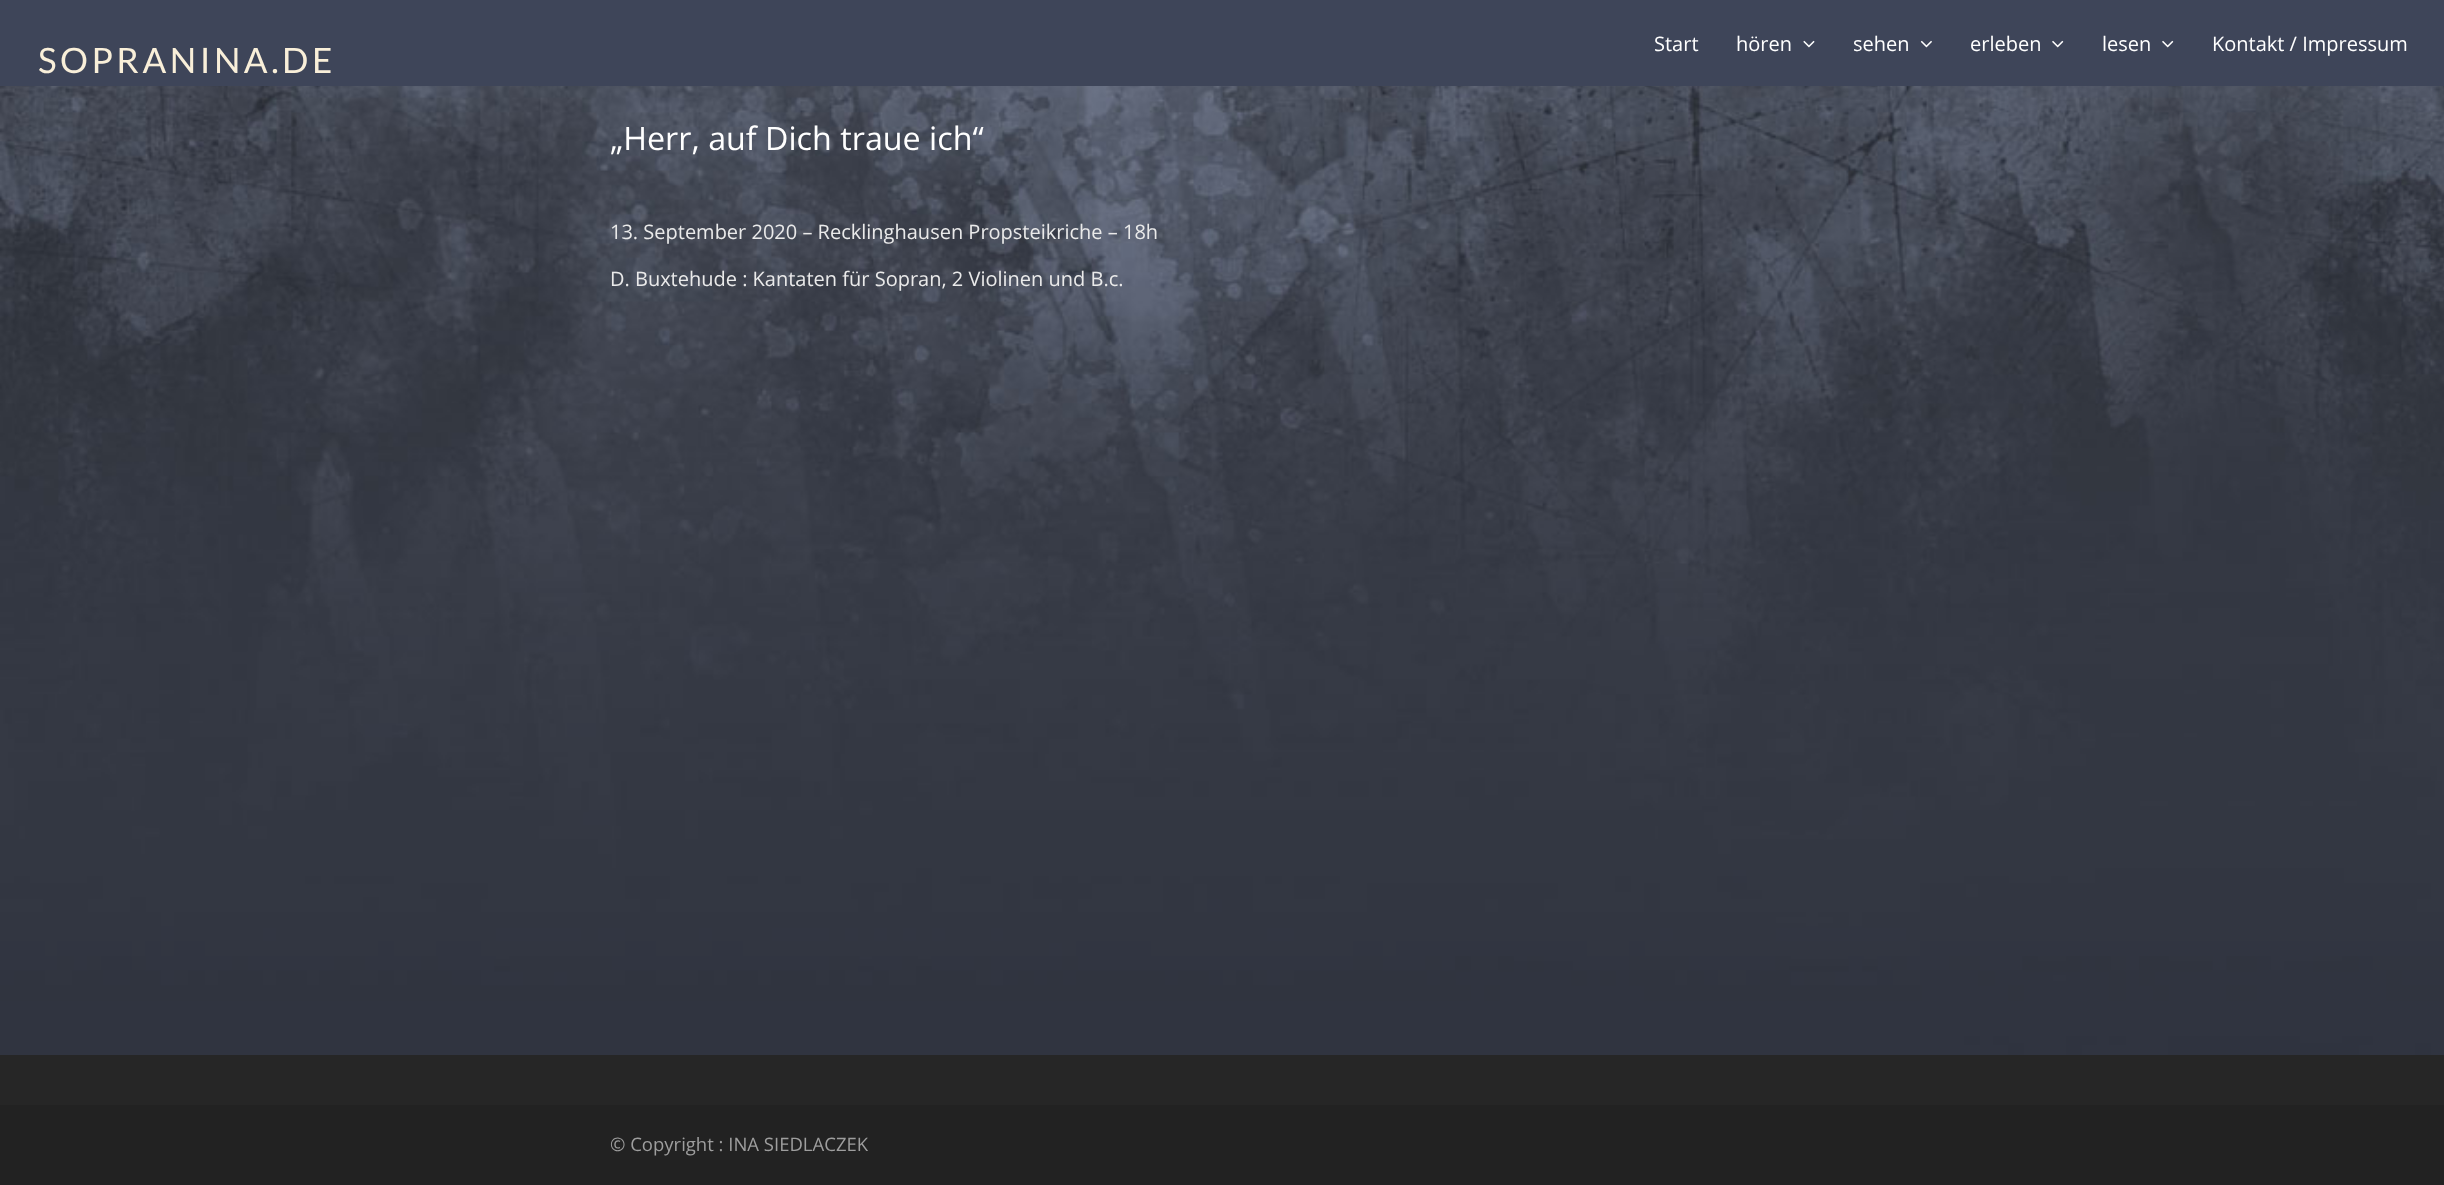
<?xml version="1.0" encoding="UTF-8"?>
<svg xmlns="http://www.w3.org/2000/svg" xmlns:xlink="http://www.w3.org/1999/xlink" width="2444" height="1185">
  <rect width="100%" height="100%" fill="#ffffff" />
  <image x="0" y="86" width="2444" height="969" xlink:href="image1.png" />
  <rect width="2444" height="86" fill="#3e4559" />
  <image x="1803" y="40" width="12" height="8" xlink:href="image2.png" />
  <image x="1920" y="40" width="12" height="8" xlink:href="image3.png" />
  <image x="2052" y="40" width="12" height="8" xlink:href="image4.png" />
  <image x="2162" y="40" width="12" height="8" xlink:href="image4.png" />
  <rect y="1055" width="2444" height="50" fill="#262626" />
  <rect y="1105" width="2444" height="80" fill="#222222" />
  <text x="38" y="73" style="font-family: Lato; font-size: 35px; letter-spacing: 3.5px; fill: #f9efd9">SOPRANINA.DE</text>
  <text x="1654" y="51" style="font-family: Open Sans; font-size: 20px; fill: #ffffff">Start</text>
  <text x="1736" y="51" style="font-family: Open Sans; font-size: 20px; fill: #ffffff">hören</text>
  <text x="1853" y="51" style="font-family: Open Sans; font-size: 20px; fill: #ffffff">sehen</text>
  <text x="1970" y="51" style="font-family: Open Sans; font-size: 20px; fill: #ffffff">erleben</text>
  <text x="2102" y="51" style="font-family: Open Sans; font-size: 20px; fill: #ffffff">lesen</text>
  <text x="2212" y="51" style="font-family: Open Sans; font-size: 20px; fill: #ffffff">Kontakt / Impressum</text>
  <text x="610" y="150" style="font-family: Open Sans; font-size: 32.25px; fill: #ffffff">„Herr, auf Dich traue ich“</text>
  <text x="610" y="239" style="font-family: Open Sans; font-size: 20px; fill: #eaeaea">13. September 2020 – Recklinghausen Propsteikriche – 18h</text>
  <text x="610" y="286" style="font-family: Open Sans; font-size: 20px; fill: #eaeaea">D. Buxtehude : Kantaten für Sopran, 2 Violinen und B.c.</text>
  <text x="610" y="1151" style="font-family: Open Sans; font-size: 18.5px; fill: #9e9e9e">© Copyright : INA SIEDLACZEK</text>
</svg>
